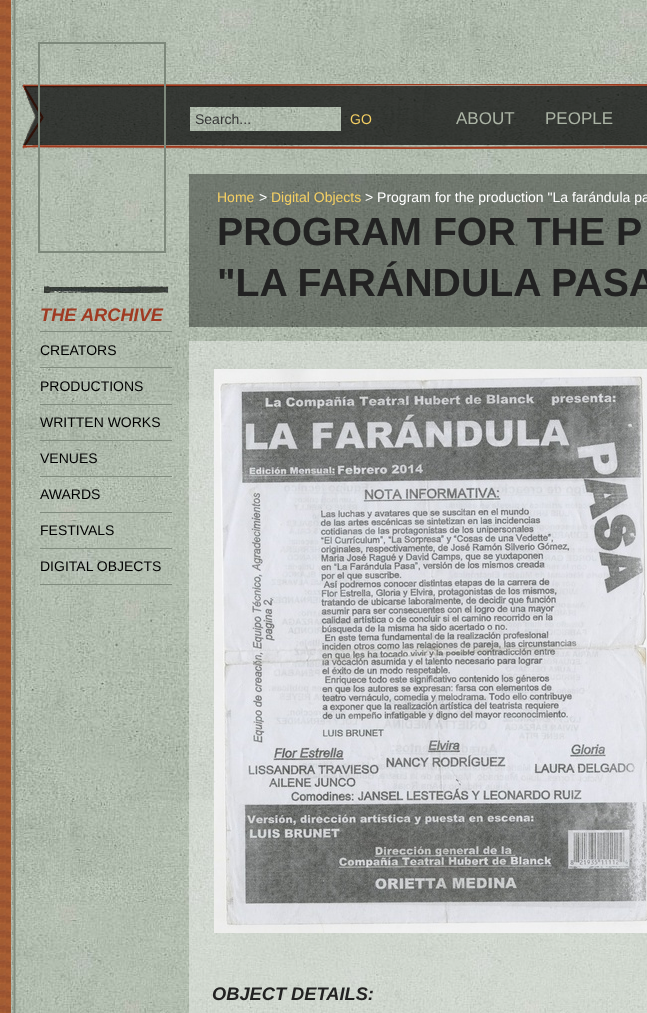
<?xml version="1.0" encoding="UTF-8"?>
<svg xmlns="http://www.w3.org/2000/svg" xmlns:xlink="http://www.w3.org/1999/xlink" width="647" height="1013">
  <rect width="100%" height="100%" fill="#ffffff" />
  <image x="16" y="0" width="631" height="1013" xlink:href="image1.png" />
  <image x="0" y="0" width="16" height="1013" xlink:href="image2.png" />
  <image x="20" y="84" width="627" height="65" xlink:href="image3.png" />
  <rect x="39" y="43" width="126" height="209" fill="none" stroke="#7d887b" stroke-width="2" />
  <image x="190" y="107" width="151" height="24" xlink:href="image4.png" />
  <image x="44" y="286" width="124" height="7" xlink:href="image5.png" />
  <rect x="40" y="331" width="132" height="1" fill="#808b7e" />
  <rect x="40" y="367" width="132" height="1" fill="#808b7e" />
  <rect x="40" y="404" width="132" height="1" fill="#808b7e" />
  <rect x="40" y="440" width="132" height="1" fill="#808b7e" />
  <rect x="40" y="476" width="132" height="1" fill="#808b7e" />
  <rect x="40" y="512" width="132" height="1" fill="#808b7e" />
  <rect x="40" y="548" width="132" height="1" fill="#808b7e" />
  <rect x="40" y="584" width="132" height="1" fill="#808b7e" />
  <rect x="189" y="174" width="458" height="153" fill="#0d0f0c" fill-opacity="0.4" />
  <rect x="189" y="341" width="458" height="672" fill="#ffffff" fill-opacity="0.4" />
  <image x="214" y="369" width="433" height="564" xlink:href="image6.png" />
  <text x="195" y="124" style="font-family: Liberation Sans; font-size: 14px; fill: #363636">Search...</text>
  <text x="350" y="124" style="font-family: Liberation Sans; font-size: 14px; fill: #f4cf63">GO</text>
  <text x="456" y="124" style="font-family: Liberation Sans; font-size: 17px; fill: #acb5a6">ABOUT</text>
  <text x="545" y="124" style="font-family: Liberation Sans; font-size: 17px; fill: #acb5a6">PEOPLE</text>
  <text x="40" y="321" style="font-family: Liberation Sans; font-size: 18.25px; font-weight: bold; font-style: italic; fill: #a03a22">THE ARCHIVE</text>
  <text x="40" y="355" style="font-family: Liberation Sans; font-size: 14px; fill: #000000">CREATORS</text>
  <text x="40" y="391" style="font-family: Liberation Sans; font-size: 14px; fill: #000000">PRODUCTIONS</text>
  <text x="40" y="427" style="font-family: Liberation Sans; font-size: 14px; fill: #000000">WRITTEN WORKS</text>
  <text x="40" y="463" style="font-family: Liberation Sans; font-size: 14px; fill: #000000">VENUES</text>
  <text x="40" y="499" style="font-family: Liberation Sans; font-size: 14px; fill: #000000">AWARDS</text>
  <text x="40" y="535" style="font-family: Liberation Sans; font-size: 14px; fill: #000000">FESTIVALS</text>
  <text x="40" y="571" style="font-family: Liberation Sans; font-size: 14px; fill: #000000">DIGITAL OBJECTS</text>
  <text x="217" y="202" style="font-family: Liberation Sans; font-size: 14px; fill: #f4cf63">Home</text>
  <text x="259" y="202" style="font-family: Liberation Sans; font-size: 14px; fill: #ffffff">&gt;</text>
  <text x="271" y="202" style="font-family: Liberation Sans; font-size: 14px; fill: #f4cf63">Digital Objects</text>
  <text x="365" y="202" style="font-family: Liberation Sans; font-size: 14px; fill: #ffffff">&gt; Program for the production "La farándula pa</text>
  <text x="217" y="245" style="font-family: Liberation Sans; font-size: 39.25px; font-weight: bold; fill: #222222">PROGRAM FOR THE P</text>
  <text x="217" y="296" style="font-family: Liberation Sans; font-size: 39.25px; font-weight: bold; fill: #222222">"LA FARÁNDULA PASA</text>
  <text x="212" y="1000" style="font-family: Liberation Sans; font-size: 18.25px; font-weight: bold; font-style: italic; fill: #222222">OBJECT DETAILS:</text>
</svg>
